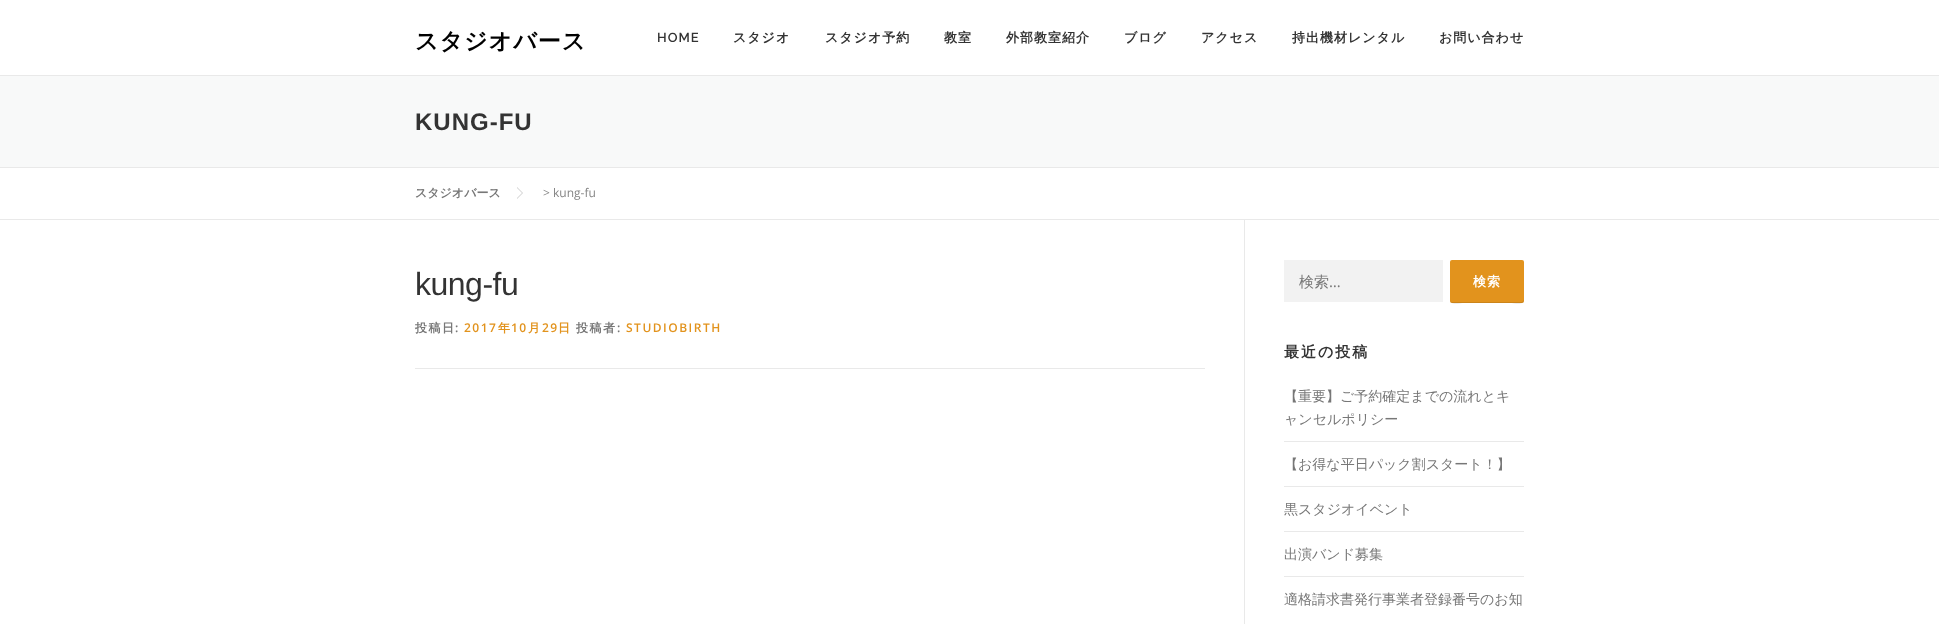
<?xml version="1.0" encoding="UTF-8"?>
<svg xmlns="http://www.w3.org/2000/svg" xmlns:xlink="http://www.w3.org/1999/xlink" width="1939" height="624">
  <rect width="100%" height="100%" fill="#ffffff" />
  <rect y="76" width="1939" height="91" fill="#f8f9f9" />
  <rect y="75" width="1939" height="1" fill="#e9e9e9" />
  <rect y="167" width="1939" height="1" fill="#e9e9e9" />
  <rect y="219" width="1939" height="1" fill="#e9e9e9" />
  <path d="M 517 199 v -12 l 6 6 z" fill="#cccccc" />
  <path d="M 517 198 v -10 l 5 5 z" fill="#ffffff" />
  <rect x="1244" y="220" width="1" height="404" fill="#e9e9e9" />
  <rect x="415" y="368" width="790" height="1" fill="#e9e9e9" />
  <rect x="1284" y="260" width="159" height="42" fill="#f2f2f2" />
  <rect x="1450" y="260" width="74" height="43" rx="2" fill="#e2931d" />
  <path d="M 1450 300 c 0 6 10 3 14 3 h 46 c 4 0 14 3 14 -3 l -1 1 l -1 1 h -70 c -1 0 -2 -1 -2 -2 z" fill="#000000" fill-opacity="0.1" />
  <rect x="1284" y="441" width="240" height="1" fill="#e9e9e9" />
  <rect x="1284" y="486" width="240" height="1" fill="#e9e9e9" />
  <rect x="1284" y="531" width="240" height="1" fill="#e9e9e9" />
  <rect x="1284" y="576" width="240" height="1" fill="#e9e9e9" />
  <text x="415" y="49" style="font-family: WenQuanYi Zen Hei; font-size: 23px; font-weight: bold; letter-spacing: 1px; fill: #000000">スタジオバース</text>
  <text x="657" y="42" style="font-family: Raleway; font-size: 13px; font-weight: 600; letter-spacing: 1px; fill: #333333">HOME</text>
  <text x="733" y="42" style="font-family: WenQuanYi Zen Hei; font-size: 13px; font-weight: bold; letter-spacing: 1px; fill: #333333">スタジオ</text>
  <text x="825" y="42" style="font-family: WenQuanYi Zen Hei; font-size: 13px; font-weight: bold; letter-spacing: 1px; fill: #333333">スタジオ予約</text>
  <text x="944" y="42" style="font-family: WenQuanYi Zen Hei; font-size: 13px; font-weight: bold; letter-spacing: 1px; fill: #333333">教室</text>
  <text x="1006" y="42" style="font-family: WenQuanYi Zen Hei; font-size: 13px; font-weight: bold; letter-spacing: 1px; fill: #333333">外部教室紹介</text>
  <text x="1124" y="42" style="font-family: WenQuanYi Zen Hei; font-size: 13px; font-weight: bold; letter-spacing: 1px; fill: #333333">ブログ</text>
  <text x="1201" y="42" style="font-family: WenQuanYi Zen Hei; font-size: 13px; font-weight: bold; letter-spacing: 1px; fill: #333333">アクセス</text>
  <text x="1292" y="42" style="font-family: WenQuanYi Zen Hei; font-size: 13px; font-weight: bold; letter-spacing: 1px; fill: #333333">持出機材レンタル</text>
  <text x="1439" y="42" style="font-family: WenQuanYi Zen Hei; font-size: 13px; font-weight: bold; letter-spacing: 1px; fill: #333333">お問い合わせ</text>
  <text x="415" y="130" style="font-family: Liberation Sans; font-size: 24px; font-weight: bold; letter-spacing: 1px; fill: #333333">KUNG-FU</text>
  <text x="415" y="197" style="font-family: WenQuanYi Zen Hei; font-size: 12px; font-weight: bold; fill: #777777">スタジオバース</text>
  <text x="543" y="197" style="font-family: Open Sans; font-size: 12px; fill: #858585">&gt; kung-fu</text>
  <text x="415" y="295" style="font-family: Liberation Sans; font-size: 32px; letter-spacing: -0.5px; fill: #333333">kung-fu</text>
  <text x="415" y="332" style="font-family: WenQuanYi Zen Hei; font-size: 12px; font-weight: bold; letter-spacing: 1.5px; fill: #777777">投稿日</text>
  <text x="455" y="332" style="font-family: Open Sans; font-size: 12px; font-weight: 600; letter-spacing: 1.5px; fill: #777777">:</text>
  <text x="464" y="332" style="font-family: Open Sans; font-size: 12px; font-weight: 600; letter-spacing: 1.5px; fill: #e2931d">2017</text>
  <text x="498" y="332" style="font-family: WenQuanYi Zen Hei; font-size: 12px; font-weight: bold; letter-spacing: 1.5px; fill: #e2931d">年</text>
  <text x="511" y="332" style="font-family: Open Sans; font-size: 12px; font-weight: 600; letter-spacing: 1.5px; fill: #e2931d">10</text>
  <text x="528" y="332" style="font-family: WenQuanYi Zen Hei; font-size: 12px; font-weight: bold; letter-spacing: 1.5px; fill: #e2931d">月</text>
  <text x="542" y="332" style="font-family: Open Sans; font-size: 12px; font-weight: 600; letter-spacing: 1.5px; fill: #e2931d">29</text>
  <text x="558" y="332" style="font-family: WenQuanYi Zen Hei; font-size: 12px; font-weight: bold; letter-spacing: 1.5px; fill: #e2931d">日</text>
  <text x="576" y="332" style="font-family: WenQuanYi Zen Hei; font-size: 12px; font-weight: bold; letter-spacing: 1.5px; fill: #777777">投稿者</text>
  <text x="617" y="332" style="font-family: Open Sans; font-size: 12px; font-weight: 600; letter-spacing: 1.5px; fill: #777777">:</text>
  <text x="626" y="332" style="font-family: Open Sans; font-size: 12px; font-weight: 600; letter-spacing: 1.5px; fill: #e2931d">STUDIOBIRTH</text>
  <text x="1299" y="287" style="font-family: WenQuanYi Zen Hei; font-size: 15px; font-weight: 500; fill: #777777">検索</text>
  <text x="1329" y="287" style="font-family: Open Sans; font-size: 15px; fill: #777777">…</text>
  <text x="1473" y="286" style="font-family: WenQuanYi Zen Hei; font-size: 13px; font-weight: bold; letter-spacing: 1px; fill: #ffffff">検索</text>
  <text x="1284" y="357" style="font-family: WenQuanYi Zen Hei; font-size: 15px; font-weight: bold; letter-spacing: 2px; fill: #333333">最近の投稿</text>
  <text x="1284" y="401" style="font-family: WenQuanYi Zen Hei; font-size: 14px; font-weight: 500; fill: #777777">【重要】ご予約確定までの流れとキ</text>
  <text x="1284" y="424" style="font-family: WenQuanYi Zen Hei; font-size: 14px; font-weight: 500; fill: #777777">ャンセルポリシー</text>
  <text x="1284" y="469" style="font-family: WenQuanYi Zen Hei; font-size: 14px; font-weight: 500; fill: #777777">【お得な平日パック割スタート！】</text>
  <text x="1284" y="514" style="font-family: WenQuanYi Zen Hei; font-size: 14px; font-weight: 500; fill: #777777">黒スタジオイベント</text>
  <text x="1284" y="559" style="font-family: WenQuanYi Zen Hei; font-size: 14px; font-weight: 500; fill: #777777">出演バンド募集</text>
  <text x="1284" y="604" style="font-family: WenQuanYi Zen Hei; font-size: 14px; font-weight: 500; fill: #777777">適格請求書発行事業者登録番号のお知</text>
</svg>
